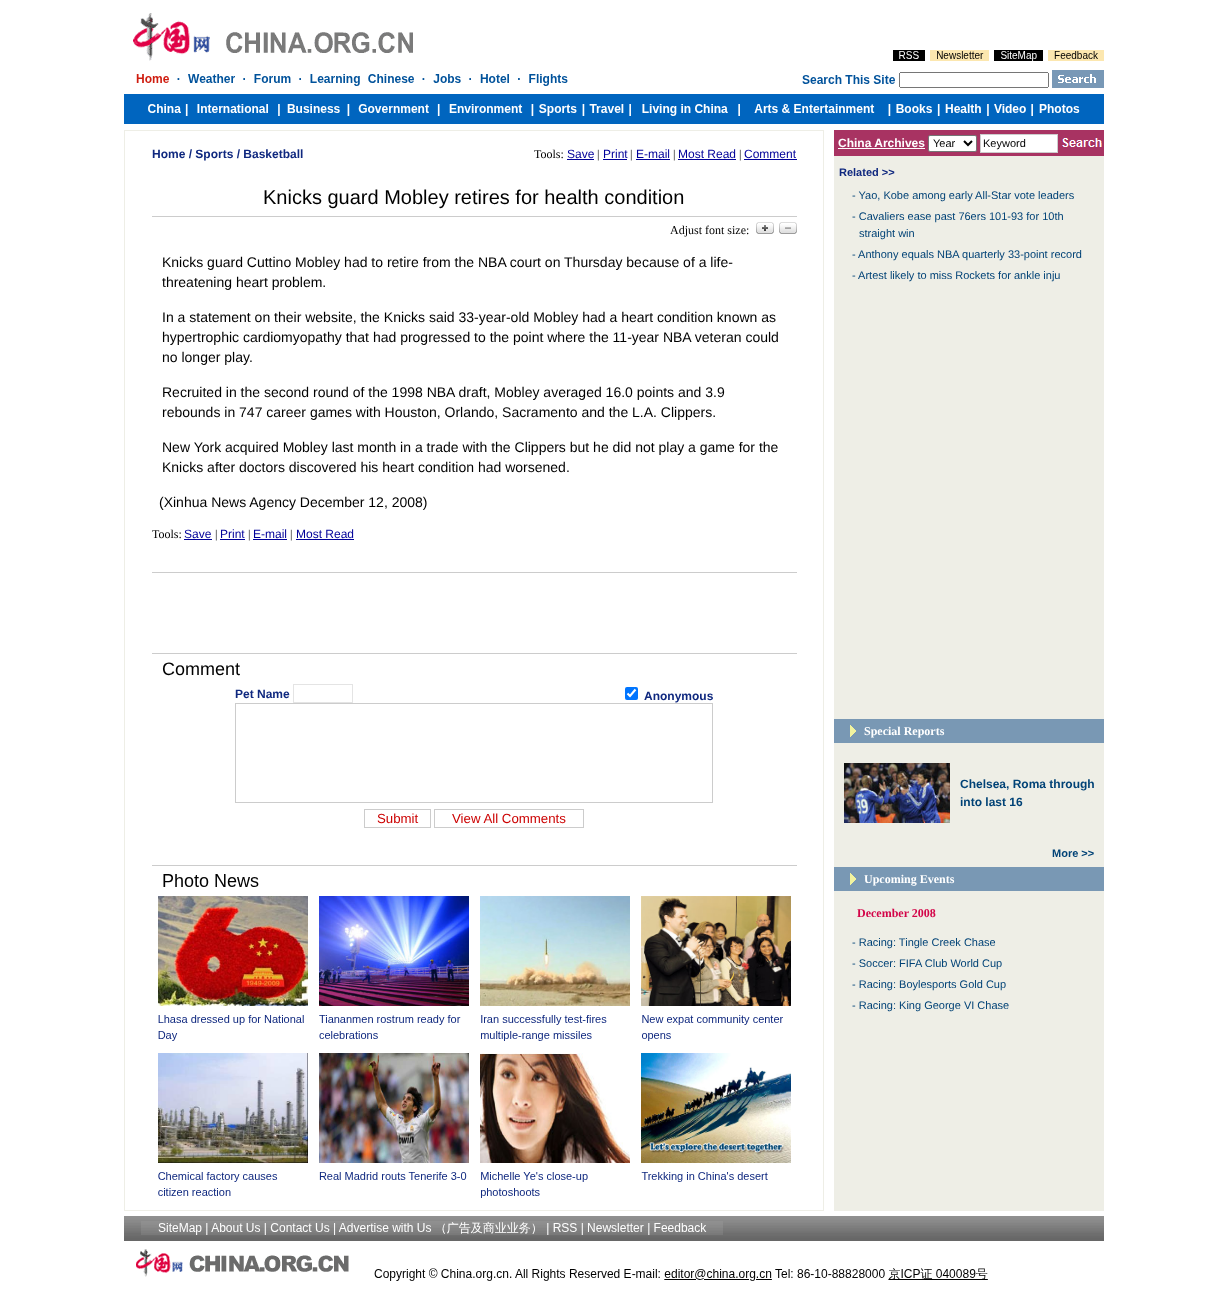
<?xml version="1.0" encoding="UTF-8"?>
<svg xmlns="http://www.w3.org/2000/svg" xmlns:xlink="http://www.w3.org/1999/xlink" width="1228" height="1296">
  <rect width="100%" height="100%" fill="#ffffff" />
  <image x="124" y="13" width="980" height="111" xlink:href="image1.png" />
  <rect x="124.5" y="130.5" width="699" height="1080" fill="none" stroke="#eeeee6" />
  <rect x="567" y="159" width="27" height="1" fill="#000099" />
  <rect x="603" y="159" width="24" height="1" fill="#000099" />
  <rect x="636" y="159" width="34" height="1" fill="#000099" />
  <rect x="678" y="159" width="58" height="1" fill="#000099" />
  <rect x="744" y="159" width="53" height="1" fill="#000099" />
  <rect x="152" y="216" width="645" height="1" fill="#cccccc" />
  <image x="756" y="222" width="18" height="12" xlink:href="image2.png" />
  <image x="779" y="222" width="18" height="12" xlink:href="image3.png" />
  <rect x="184" y="539" width="28" height="1" fill="#000099" />
  <rect x="220" y="539" width="25" height="1" fill="#000099" />
  <rect x="253" y="539" width="34" height="1" fill="#000099" />
  <rect x="296" y="539" width="58" height="1" fill="#000099" />
  <rect x="152" y="572" width="645" height="1" fill="#cccccc" />
  <rect x="152" y="653" width="645" height="1" fill="#cccccc" />
  <rect x="293.5" y="684.5" width="59" height="18" fill="none" stroke="#e4e4e4" />
  <rect x="625" y="687" width="13" height="13" rx="2" fill="#0075ff" />
  <path d="M 627.5 693.5 l 2.5 2.5 l 5.5 -6.5" fill="none" stroke="#ffffff" stroke-width="2.1" />
  <rect x="235.5" y="703.5" width="477" height="99" fill="none" stroke="#cccccc" />
  <rect x="364.5" y="809.5" width="66" height="18" fill="none" stroke="#cccccc" />
  <rect x="434.5" y="809.5" width="149" height="18" fill="none" stroke="#cccccc" />
  <image x="152" y="865" width="645" height="333" xlink:href="image4.png" />
  <rect x="834" y="156" width="270" height="1055" fill="#eeeee6" />
  <rect x="834" y="130" width="270" height="26" fill="#a83362" />
  <rect x="838" y="148" width="87" height="1" fill="#ffffff" />
  <rect x="928.5" y="135.5" width="48" height="16" rx="1.5" fill="#ffffff" stroke="#767676" />
  <path d="M 964 141 l 4 4 l 4 -4" fill="none" stroke="#000000" stroke-width="2" />
  <rect x="980.5" y="134.5" width="77" height="18" fill="#ffffff" stroke="#cccccc" />
  <image x="1061" y="134" width="42" height="18" xlink:href="image5.png" />
  <image x="834" y="719" width="270" height="24" xlink:href="image6.png" />
  <image x="844" y="763" width="106" height="60" xlink:href="image7.png" />
  <image x="834" y="867" width="270" height="24" xlink:href="image6.png" />
  <image x="124" y="1216" width="980" height="65" xlink:href="image8.png" />
  <text x="152" y="158" style="font-family: Liberation Sans; font-size: 12px; font-weight: bold; fill: #0f287f">Home / Sports / Basketball</text>
  <text x="534" y="158" style="font-family: Liberation Serif; font-size: 12px; fill: #000000">Tools:</text>
  <text x="567" y="158" style="font-family: Liberation Sans; font-size: 12px; fill: #000099">Save</text>
  <text x="597" y="158" style="font-family: Liberation Serif; font-size: 12px; fill: #000000">|</text>
  <text x="603" y="158" style="font-family: Liberation Sans; font-size: 12px; fill: #000099">Print</text>
  <text x="630" y="158" style="font-family: Liberation Serif; font-size: 12px; fill: #000000">|</text>
  <text x="636" y="158" style="font-family: Liberation Sans; font-size: 12px; fill: #000099">E-mail</text>
  <text x="673" y="158" style="font-family: Liberation Serif; font-size: 12px; fill: #000000">|</text>
  <text x="678" y="158" style="font-family: Liberation Sans; font-size: 12px; fill: #000099">Most Read</text>
  <text x="739" y="158" style="font-family: Liberation Serif; font-size: 12px; fill: #000000">|</text>
  <text x="744" y="158" style="font-family: Liberation Sans; font-size: 12px; fill: #000099">Comment</text>
  <text x="263" y="204" style="font-family: Liberation Sans; font-size: 20px; fill: #000000">Knicks guard Mobley retires for health condition</text>
  <text x="670" y="234" style="font-family: Liberation Serif; font-size: 12px; fill: #000000">Adjust font size:</text>
  <text x="162" y="267" style="font-family: Liberation Sans; font-size: 14px; fill: #000000">Knicks guard Cuttino Mobley had to retire from the NBA court on Thursday because of a life-</text>
  <text x="162" y="287" style="font-family: Liberation Sans; font-size: 14px; fill: #000000">threatening heart problem.</text>
  <text x="162" y="322" style="font-family: Liberation Sans; font-size: 14px; fill: #000000">In a statement on their website, the Knicks said 33-year-old Mobley had a heart condition known as</text>
  <text x="162" y="342" style="font-family: Liberation Sans; font-size: 14px; fill: #000000">hypertrophic cardiomyopathy that had progressed to the point where the 11-year NBA veteran could</text>
  <text x="162" y="362" style="font-family: Liberation Sans; font-size: 14px; fill: #000000">no longer play.</text>
  <text x="162" y="397" style="font-family: Liberation Sans; font-size: 14px; fill: #000000">Recruited in the second round of the 1998 NBA draft, Mobley averaged 16.0 points and 3.9</text>
  <text x="162" y="417" style="font-family: Liberation Sans; font-size: 14px; fill: #000000">rebounds in 747 career games with Houston, Orlando, Sacramento and the L.A. Clippers.</text>
  <text x="162" y="452" style="font-family: Liberation Sans; font-size: 14px; fill: #000000">New York acquired Mobley last month in a trade with the Clippers but he did not play a game for the</text>
  <text x="162" y="472" style="font-family: Liberation Sans; font-size: 14px; fill: #000000">Knicks after doctors discovered his heart condition had worsened.</text>
  <text x="159" y="507" style="font-family: Liberation Sans; font-size: 14px; fill: #000000">(Xinhua News Agency December 12, 2008)</text>
  <text x="152" y="538" style="font-family: Liberation Serif; font-size: 12px; fill: #000000">Tools:</text>
  <text x="184" y="538" style="font-family: Liberation Sans; font-size: 12px; fill: #000099">Save</text>
  <text x="215" y="538" style="font-family: Liberation Serif; font-size: 12px; fill: #000000">|</text>
  <text x="220" y="538" style="font-family: Liberation Sans; font-size: 12px; fill: #000099">Print</text>
  <text x="248" y="538" style="font-family: Liberation Serif; font-size: 12px; fill: #000000">|</text>
  <text x="253" y="538" style="font-family: Liberation Sans; font-size: 12px; fill: #000099">E-mail</text>
  <text x="290" y="538" style="font-family: Liberation Serif; font-size: 12px; fill: #000000">|</text>
  <text x="296" y="538" style="font-family: Liberation Sans; font-size: 12px; fill: #000099">Most Read</text>
  <text x="162" y="675" style="font-family: Liberation Sans; font-size: 18px; fill: #000000">Comment</text>
  <text x="235" y="698" style="font-family: Liberation Sans; font-size: 12px; font-weight: bold; fill: #0f287f">Pet Name</text>
  <text x="644" y="700" style="font-family: Liberation Sans; font-size: 12px; font-weight: bold; fill: #0f287f">Anonymous</text>
  <text x="377" y="823" style="font-family: Liberation Sans; font-size: 13.25px; fill: #cc0000">Submit</text>
  <text x="452" y="823" style="font-family: Liberation Sans; font-size: 13.25px; fill: #cc0000">View All Comments</text>
  <text x="838" y="147" style="font-family: Liberation Sans; font-size: 12px; font-weight: bold; fill: #ffffff">China Archives</text>
  <text x="933" y="147" style="font-family: Liberation Sans; font-size: 11px; fill: #000000">Year</text>
  <text x="983" y="147" style="font-family: Liberation Sans; font-size: 11px; fill: #000000">Keyword</text>
  <text x="839" y="176" style="font-family: Liberation Sans; font-size: 11px; font-weight: bold; fill: #0f287f">Related &gt;&gt;</text>
  <text x="852" y="199" style="font-family: Liberation Sans; font-size: 11px; fill: #004276">- Yao, Kobe among early All-Star vote leaders</text>
  <text x="852" y="220" style="font-family: Liberation Sans; font-size: 11px; fill: #004276">- Cavaliers ease past 76ers 101-93 for 10th</text>
  <text x="859" y="237" style="font-family: Liberation Sans; font-size: 11px; fill: #004276">straight win</text>
  <text x="852" y="258" style="font-family: Liberation Sans; font-size: 11px; fill: #004276">- Anthony equals NBA quarterly 33-point record</text>
  <text x="852" y="279" style="font-family: Liberation Sans; font-size: 11px; fill: #004276">- Artest likely to miss Rockets for ankle inju</text>
  <text x="864" y="735" style="font-family: Liberation Serif; font-size: 12px; font-weight: bold; fill: #ffffff">Special Reports</text>
  <text x="960" y="788" style="font-family: Liberation Sans; font-size: 12px; font-weight: bold; fill: #004276">Chelsea, Roma through</text>
  <text x="960" y="806" style="font-family: Liberation Sans; font-size: 12px; font-weight: bold; fill: #004276">into last 16</text>
  <text x="1052" y="857" style="font-family: Liberation Sans; font-size: 11px; font-weight: bold; fill: #004276">More &gt;&gt;</text>
  <text x="864" y="883" style="font-family: Liberation Serif; font-size: 12px; font-weight: bold; fill: #ffffff">Upcoming Events</text>
  <text x="857" y="917" style="font-family: Liberation Serif; font-size: 12px; font-weight: bold; fill: #d30448">December 2008</text>
  <text x="852" y="946" style="font-family: Liberation Sans; font-size: 11px; fill: #004276">- Racing: Tingle Creek Chase</text>
  <text x="852" y="967" style="font-family: Liberation Sans; font-size: 11px; fill: #004276">- Soccer: FIFA Club World Cup</text>
  <text x="852" y="988" style="font-family: Liberation Sans; font-size: 11px; fill: #004276">- Racing: Boylesports Gold Cup</text>
  <text x="852" y="1009" style="font-family: Liberation Sans; font-size: 11px; fill: #004276">- Racing: King George VI Chase</text>
</svg>
